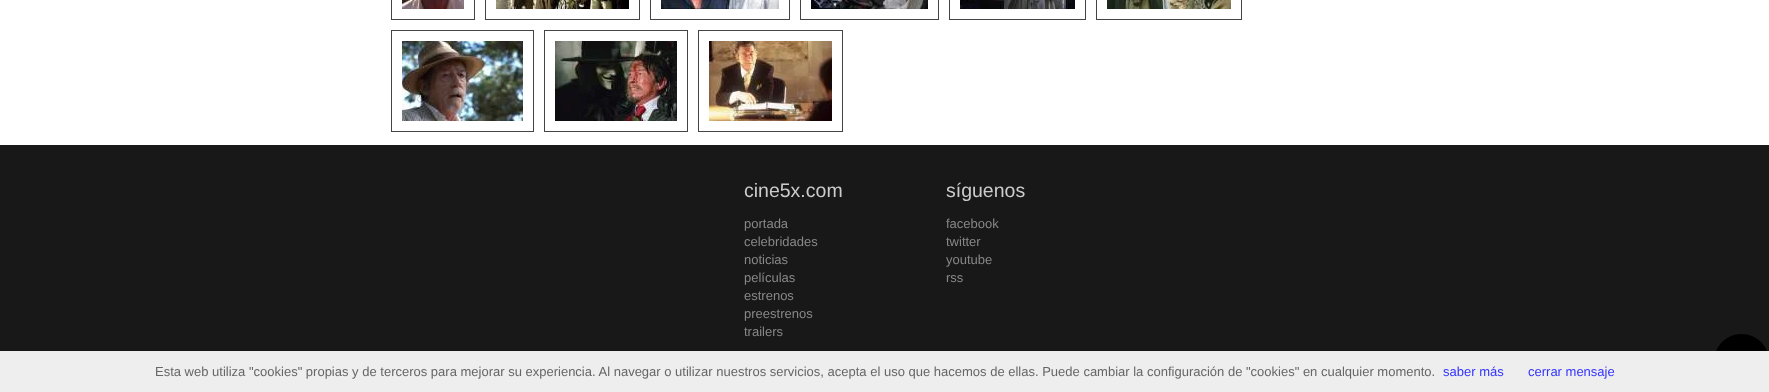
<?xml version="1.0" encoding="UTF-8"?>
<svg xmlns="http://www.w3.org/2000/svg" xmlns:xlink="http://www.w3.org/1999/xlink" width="1769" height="392">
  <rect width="100%" height="100%" fill="#ffffff" />
  <rect x="391.5" y="-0.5" width="83" height="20" fill="none" stroke="#444444" />
  <image x="402" y="0" width="62" height="9" xlink:href="image1.png" />
  <rect x="485.5" y="-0.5" width="154" height="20" fill="none" stroke="#444444" />
  <image x="496" y="0" width="133" height="9" xlink:href="image2.png" />
  <rect x="650.5" y="-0.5" width="139" height="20" fill="none" stroke="#444444" />
  <image x="661" y="0" width="118" height="9" xlink:href="image3.png" />
  <rect x="800.5" y="-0.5" width="138" height="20" fill="none" stroke="#444444" />
  <image x="811" y="0" width="117" height="9" xlink:href="image4.png" />
  <rect x="949.5" y="-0.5" width="136" height="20" fill="none" stroke="#444444" />
  <image x="960" y="0" width="115" height="9" xlink:href="image5.png" />
  <rect x="1096.5" y="-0.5" width="145" height="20" fill="none" stroke="#444444" />
  <image x="1107" y="0" width="124" height="9" xlink:href="image6.png" />
  <rect x="391.5" y="30.5" width="142" height="101" fill="none" stroke="#444444" />
  <image x="402" y="41" width="121" height="80" xlink:href="image7.png" />
  <rect x="544.5" y="30.5" width="143" height="101" fill="none" stroke="#444444" />
  <image x="555" y="41" width="122" height="80" xlink:href="image8.png" />
  <rect x="698.5" y="30.5" width="144" height="101" fill="none" stroke="#444444" />
  <image x="709" y="41" width="123" height="80" xlink:href="image9.png" />
  <rect y="145" width="1769" height="206" fill="#181818" />
  <image x="1716" y="334" width="51" height="17" xlink:href="image10.png" />
  <rect y="351" width="1769" height="41" fill="#eeeeee" />
  <text x="744" y="197" style="font-family: Liberation Sans; font-size: 19.5px; fill: #cccccc">cine5x.com</text>
  <text x="744" y="228" style="font-family: Liberation Sans; font-size: 13px; fill: #888888">portada</text>
  <text x="744" y="246" style="font-family: Liberation Sans; font-size: 13px; fill: #888888">celebridades</text>
  <text x="744" y="264" style="font-family: Liberation Sans; font-size: 13px; fill: #888888">noticias</text>
  <text x="744" y="282" style="font-family: Liberation Sans; font-size: 13px; fill: #888888">películas</text>
  <text x="744" y="300" style="font-family: Liberation Sans; font-size: 13px; fill: #888888">estrenos</text>
  <text x="744" y="318" style="font-family: Liberation Sans; font-size: 13px; fill: #888888">preestrenos</text>
  <text x="744" y="336" style="font-family: Liberation Sans; font-size: 13px; fill: #888888">trailers</text>
  <text x="946" y="197" style="font-family: Liberation Sans; font-size: 19.5px; fill: #cccccc">síguenos</text>
  <text x="946" y="228" style="font-family: Liberation Sans; font-size: 13px; fill: #888888">facebook</text>
  <text x="946" y="246" style="font-family: Liberation Sans; font-size: 13px; fill: #888888">twitter</text>
  <text x="946" y="264" style="font-family: Liberation Sans; font-size: 13px; fill: #888888">youtube</text>
  <text x="946" y="282" style="font-family: Liberation Sans; font-size: 13px; fill: #888888">rss</text>
  <text x="155" y="376" style="font-family: Liberation Sans; font-size: 13px; fill: #666666">Esta web utiliza "cookies" propias y de terceros para mejorar su experiencia. Al navegar o utilizar nuestros servicios, acepta el uso que hacemos de ellas. Puede cambiar la configuración de "cookies" en cualquier momento.</text>
  <text x="1443" y="376" style="font-family: Liberation Sans; font-size: 13px; fill: #3333ff">saber más</text>
  <text x="1528" y="376" style="font-family: Liberation Sans; font-size: 13px; fill: #3333ff">cerrar mensaje</text>
</svg>
